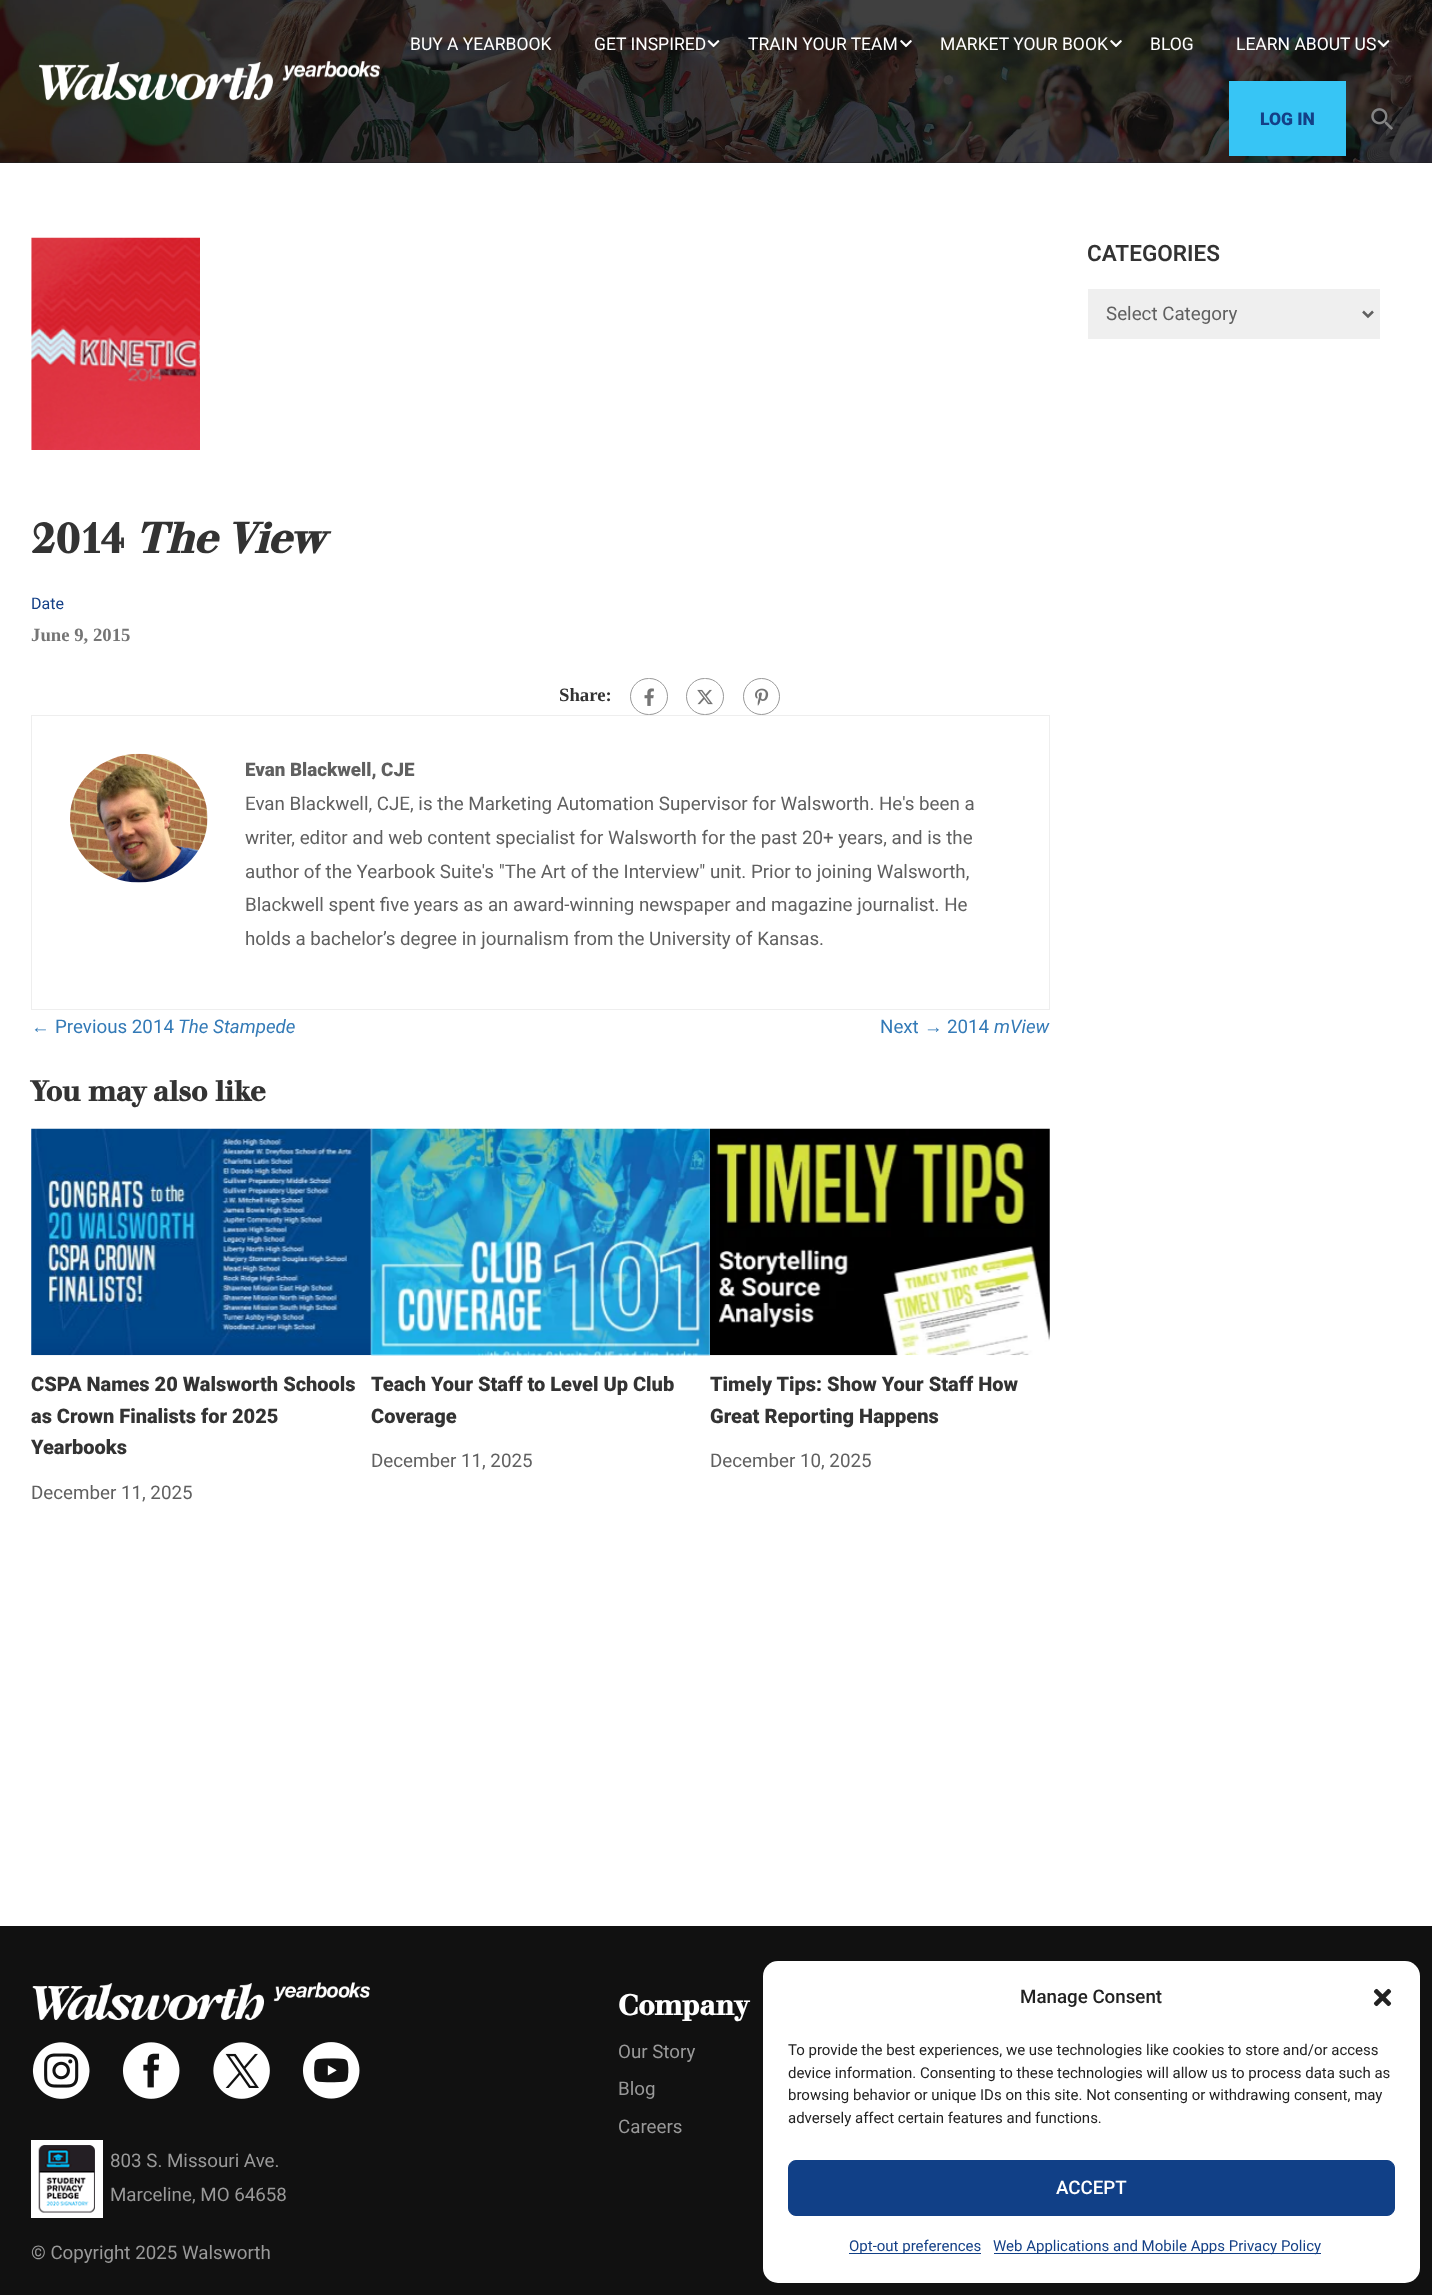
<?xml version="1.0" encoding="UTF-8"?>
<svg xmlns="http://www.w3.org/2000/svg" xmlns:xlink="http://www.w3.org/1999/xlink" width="1432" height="2295">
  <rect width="100%" height="100%" fill="#ffffff" />
  <rect y="162" width="1432" height="1" fill="#1c1f22" />
  <image x="0" y="0" width="1432" height="163" xlink:href="image7.png" />
  <image x="39" y="61" width="341" height="40" xlink:href="image1.png" />
  <image x="707" y="40" width="13" height="8" xlink:href="image2.png" />
  <image x="900" y="40" width="12" height="8" xlink:href="image3.png" />
  <image x="1110" y="40" width="12" height="8" xlink:href="image4.png" />
  <image x="1377" y="40" width="13" height="8" xlink:href="image5.png" />
  <rect x="1229" y="81" width="117" height="75" fill="#37c5f5" />
  <image x="1371" y="108" width="22" height="22" xlink:href="image6.png" />
  <rect x="1088" y="289" width="292" height="50" fill="#efefef" />
  <path d="M 1363 311.5 l 5 5 l 5 -5" fill="none" stroke="#606060" stroke-width="2.5" />
  <image x="31" y="237" width="169" height="213" xlink:href="image8.png" />
  <rect x="630.5" y="678.5" width="37" height="36" rx="18" fill="none" stroke="#999999" />
  <image x="644" y="688" width="10" height="18" xlink:href="image9.png" />
  <rect x="686.5" y="678.5" width="37" height="36" rx="18" fill="none" stroke="#999999" />
  <image x="697" y="689" width="16" height="16" xlink:href="image10.png" />
  <circle cx="761.5" cy="696.5" r="18" fill="none" stroke="#999999" />
  <image x="755" y="688" width="14" height="18" xlink:href="image11.png" />
  <rect x="31.5" y="715.5" width="1018" height="294" fill="none" stroke="#eeeeee" />
  <image x="70" y="753" width="138" height="130" xlink:href="image12.png" />
  <image x="31" y="1128" width="341" height="228" xlink:href="image13.png" />
  <image x="371" y="1128" width="339" height="228" xlink:href="image14.png" />
  <image x="710" y="1128" width="340" height="228" xlink:href="image15.png" />
  <rect y="1926" width="1432" height="369" fill="#111111" />
  <image x="32" y="1982" width="338" height="38" xlink:href="image16.png" />
  <image x="32" y="2042" width="58" height="57" xlink:href="image17.png" />
  <image x="122" y="2042" width="58" height="57" xlink:href="image18.png" />
  <image x="213" y="2042" width="57" height="57" xlink:href="image19.png" />
  <image x="302" y="2042" width="58" height="57" xlink:href="image20.png" />
  <rect x="31" y="2140" width="72" height="78" fill="#ffffff" />
  <image x="38" y="2145" width="57" height="68" xlink:href="image21.png" />
  <rect x="763" y="1961" width="657" height="322" rx="15" fill="#ffffff" />
  <image x="1373" y="1988" width="19" height="19" xlink:href="image22.png" />
  <rect x="788.5" y="2160.5" width="606" height="55" rx="7.5" fill="#114087" stroke="#114087" />
  <rect x="849" y="2253" width="132" height="1" fill="#114087" />
  <rect x="994" y="2253" width="327" height="1" fill="#114087" />
  <text x="410" y="50" style="font-family: Roboto; font-size: 17.5px; fill: #ffffff">BUY A YEARBOOK</text>
  <text x="594" y="50" style="font-family: Roboto; font-size: 17.5px; fill: #ffffff">GET INSPIRED</text>
  <text x="748" y="50" style="font-family: Roboto; font-size: 17.5px; fill: #ffffff">TRAIN YOUR TEAM</text>
  <text x="940" y="50" style="font-family: Roboto; font-size: 17.5px; fill: #ffffff">MARKET YOUR BOOK</text>
  <text x="1150" y="50" style="font-family: Roboto; font-size: 17.5px; fill: #ffffff">BLOG</text>
  <text x="1236" y="50" style="font-family: Roboto; font-size: 17.5px; fill: #ffffff">LEARN ABOUT US</text>
  <text x="1260" y="125" style="font-family: Roboto; font-size: 17.5px; font-weight: 900; fill: #144087">LOG IN</text>
  <text x="1087" y="261" style="font-family: Roboto; font-size: 22.5px; font-weight: 600; fill: #333333">CATEGORIES</text>
  <text x="1106" y="320" style="font-family: Roboto; font-size: 18.75px; fill: #606060">Select Category</text>
  <text x="31" y="553" style="font-family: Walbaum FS; font-size: 45px; font-weight: bold; fill: #333333">2014</text>
  <text x="136" y="553" style="font-family: Walbaum FS; font-size: 45px; font-weight: bold; font-style: italic; fill: #333333">The View</text>
  <text x="31" y="609" style="font-family: Roboto; font-size: 16px; fill: #144087">Date</text>
  <text x="31" y="641" style="font-family: Liberation Serif; font-size: 18.75px; font-weight: bold; fill: #757575">June 9, 2015</text>
  <text x="559" y="701" style="font-family: Liberation Serif; font-size: 18.75px; font-weight: bold; fill: #333333">Share:</text>
  <text x="245" y="776" style="font-family: Roboto; font-size: 18.75px; font-weight: 900; fill: #606060">Evan Blackwell, CJE</text>
  <text x="245" y="810" style="font-family: Roboto; font-size: 18.75px; fill: #606060">Evan Blackwell, CJE, is the Marketing Automation Supervisor for Walsworth. He's been a</text>
  <text x="245" y="844" style="font-family: Roboto; font-size: 18.75px; fill: #606060">writer, editor and web content specialist for Walsworth for the past 20+ years, and is the</text>
  <text x="245" y="878" style="font-family: Roboto; font-size: 18.75px; fill: #606060">author of the Yearbook Suite's "The Art of the Interview" unit. Prior to joining Walsworth,</text>
  <text x="245" y="911" style="font-family: Roboto; font-size: 18.75px; fill: #606060">Blackwell spent five years as an award-winning newspaper and magazine journalist. He</text>
  <text x="245" y="945" style="font-family: Roboto; font-size: 18.75px; fill: #606060">holds a bachelor’s degree in journalism from the University of Kansas.</text>
  <text x="31" y="1033" style="font-family: Liberation Serif; font-size: 18.75px; fill: #337ab7">←</text>
  <text x="55" y="1033" style="font-family: Roboto; font-size: 18.75px; fill: #337ab7">Previous 2014</text>
  <text x="178" y="1033" style="font-family: Roboto; font-size: 18.75px; font-style: italic; fill: #337ab7">The Stampede</text>
  <text x="880" y="1033" style="font-family: Roboto; font-size: 18.75px; fill: #337ab7">Next</text>
  <text x="924" y="1033" style="font-family: Liberation Serif; font-size: 18.75px; fill: #337ab7">→</text>
  <text x="947" y="1033" style="font-family: Roboto; font-size: 18.75px; fill: #337ab7">2014</text>
  <text x="994" y="1033" style="font-family: Roboto; font-size: 18.75px; font-style: italic; fill: #337ab7">mView</text>
  <text x="31" y="1101" style="font-family: Walbaum FS; font-size: 30px; font-weight: bold; fill: #333333">You may also like</text>
  <text x="31" y="1391" style="font-family: Roboto; font-size: 20px; font-weight: 900; fill: #333333">CSPA Names 20 Walsworth Schools</text>
  <text x="31" y="1423" style="font-family: Roboto; font-size: 20px; font-weight: 900; fill: #333333">as Crown Finalists for 2025</text>
  <text x="31" y="1454" style="font-family: Roboto; font-size: 20px; font-weight: 900; fill: #333333">Yearbooks</text>
  <text x="31" y="1499" style="font-family: Roboto; font-size: 18.75px; fill: #606060">December 11, 2025</text>
  <text x="371" y="1391" style="font-family: Roboto; font-size: 20px; font-weight: 900; fill: #333333">Teach Your Staff to Level Up Club</text>
  <text x="371" y="1423" style="font-family: Roboto; font-size: 20px; font-weight: 900; fill: #333333">Coverage</text>
  <text x="371" y="1467" style="font-family: Roboto; font-size: 18.75px; fill: #606060">December 11, 2025</text>
  <text x="710" y="1391" style="font-family: Roboto; font-size: 20px; font-weight: 900; fill: #333333">Timely Tips: Show Your Staff How</text>
  <text x="710" y="1423" style="font-family: Roboto; font-size: 20px; font-weight: 900; fill: #333333">Great Reporting Happens</text>
  <text x="710" y="1467" style="font-family: Roboto; font-size: 18.75px; fill: #606060">December 10, 2025</text>
  <text x="618" y="2015" style="font-family: Walbaum FS; font-size: 30px; font-weight: bold; fill: #ffffff">Company</text>
  <text x="618" y="2058" style="font-family: Roboto; font-size: 18.75px; fill: #999999">Our Story</text>
  <text x="618" y="2095" style="font-family: Roboto; font-size: 18.75px; fill: #999999">Blog</text>
  <text x="618" y="2133" style="font-family: Roboto; font-size: 18.75px; fill: #999999">Careers</text>
  <text x="110" y="2167" style="font-family: Roboto; font-size: 18.75px; fill: #999999">803 S. Missouri Ave.</text>
  <text x="110" y="2201" style="font-family: Roboto; font-size: 18.75px; fill: #999999">Marceline, MO 64658</text>
  <text x="31" y="2259" style="font-family: Roboto; font-size: 18.75px; fill: #999999">© Copyright 2025 Walsworth</text>
  <text x="1020" y="2003" style="font-family: Roboto; font-size: 18.75px; font-weight: 500; fill: #222222">Manage Consent</text>
  <text x="788" y="2055" style="font-family: Roboto; font-size: 15px; fill: #222222">To provide the best experiences, we use technologies like cookies to store and/or access</text>
  <text x="788" y="2078" style="font-family: Roboto; font-size: 15px; fill: #222222">device information. Consenting to these technologies will allow us to process data such as</text>
  <text x="788" y="2100" style="font-family: Roboto; font-size: 15px; fill: #222222">browsing behavior or unique IDs on this site. Not consenting or withdrawing consent, may</text>
  <text x="788" y="2123" style="font-family: Roboto; font-size: 15px; fill: #222222">adversely affect certain features and functions.</text>
  <text x="1056" y="2194" style="font-family: Roboto; font-size: 18.75px; font-weight: 500; fill: #ffffff">ACCEPT</text>
  <text x="849" y="2251" style="font-family: Roboto; font-size: 15px; fill: #144087">Opt-out preferences</text>
  <text x="993" y="2251" style="font-family: Roboto; font-size: 15px; fill: #144087">Web Applications and Mobile Apps Privacy Policy</text>
</svg>
